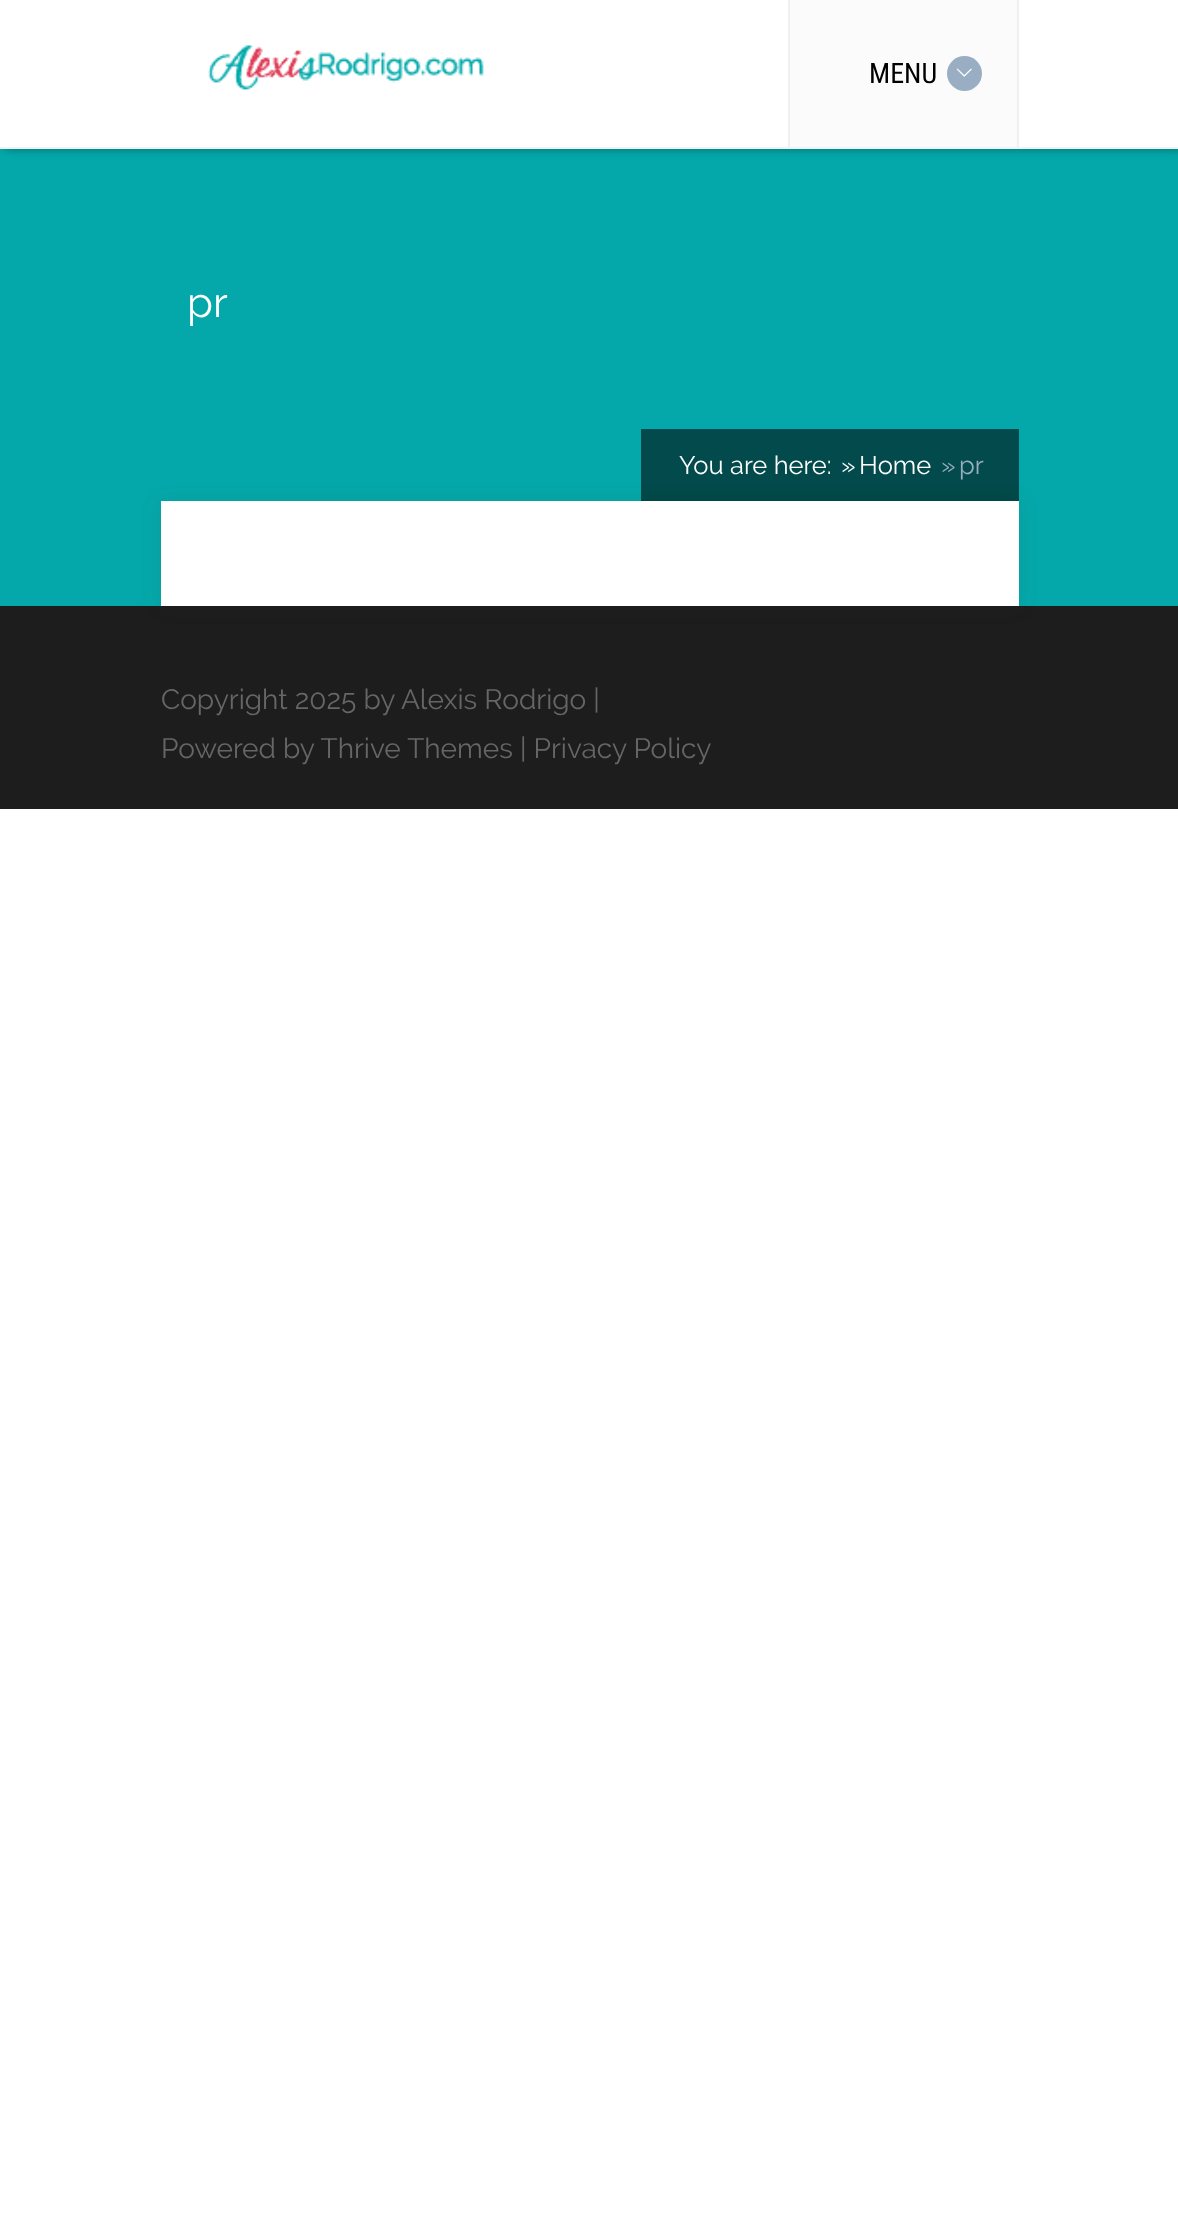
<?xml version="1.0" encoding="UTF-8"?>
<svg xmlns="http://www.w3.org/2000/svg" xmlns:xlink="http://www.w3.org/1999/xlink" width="1178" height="2220">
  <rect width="100%" height="100%" fill="#ffffff" />
  <rect y="149" width="1178" height="457" fill="#05a8aa" />
  <rect x="5" width="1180" height="149" fill="#000000" fill-opacity="0.37" filter="blur(5px)" />
  <rect width="1178" height="147" fill="#ffffff" />
  <rect y="147" width="1178" height="2" fill="#f1f1f1" />
  <image x="208" y="45" width="276" height="45" xlink:href="image1.png" />
  <rect x="790" width="227" height="147" fill="#fbfbfb" />
  <rect x="1017" width="2" height="147" fill="#f0f0f0" />
  <rect x="788" width="2" height="147" fill="#f0f0f0" />
  <circle cx="964.5" cy="73.5" r="17.5" fill="#99aec2" />
  <image x="956" y="68" width="16" height="9" xlink:href="image2.png" />
  <rect y="606" width="1178" height="203" fill="#1d1d1d" />
  <rect x="161" y="501" width="858" height="105" fill="#323232" fill-opacity="0.11" filter="blur(9.5px)" />
  <rect x="161" y="501" width="858" height="105" fill="#ffffff" />
  <rect x="641" y="429" width="378" height="72" fill="#000000" fill-opacity="0.56" />
  <text x="869" y="83" style="font-family: Roboto Condensed; font-size: 28px; fill: #000000">MENU</text>
  <text x="187" y="317" style="font-family: Raleway; font-size: 42px; fill: #ffffff">pr</text>
  <text x="679" y="474" style="font-family: Raleway; font-size: 25.5px; fill: #ffffff">You are here:</text>
  <text x="841" y="474" style="font-family: Raleway; font-size: 25.5px; fill: #ffffff">»</text>
  <text x="859" y="474" style="font-family: Raleway; font-size: 25.5px; fill: #ffffff">Home</text>
  <text x="941" y="474" style="font-family: Raleway; font-size: 25.5px; fill: #99aec2">»</text>
  <text x="959" y="474" style="font-family: Raleway; font-size: 25.5px; fill: #99aec2">pr</text>
  <text x="161" y="709" style="font-family: Raleway; font-size: 28px; fill: #666666">Copyright 2025 by Alexis Rodrigo |</text>
  <text x="161" y="758" style="font-family: Raleway; font-size: 28px; fill: #666666">Powered by Thrive Themes | Privacy Policy</text>
</svg>
